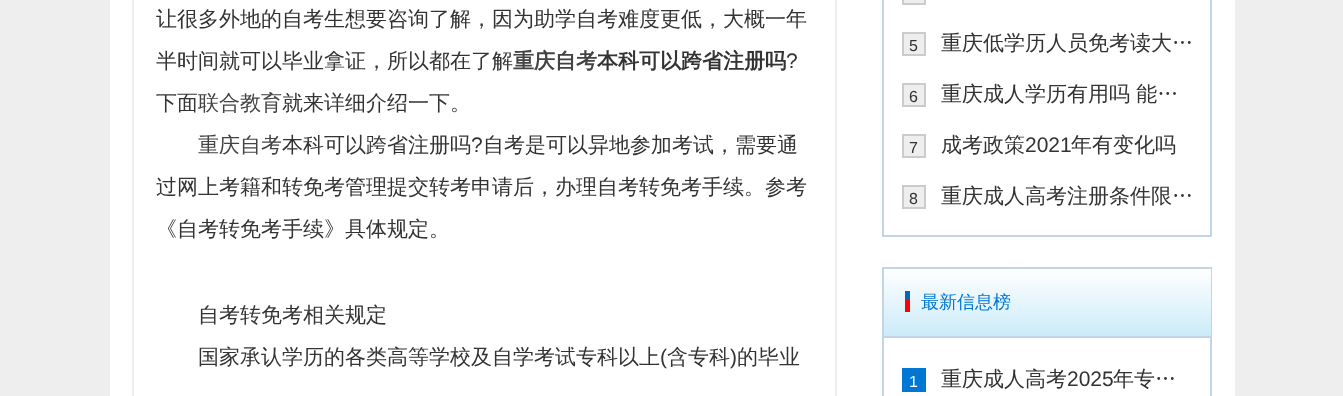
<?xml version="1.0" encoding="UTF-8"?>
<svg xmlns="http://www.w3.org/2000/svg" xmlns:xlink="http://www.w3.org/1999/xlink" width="1343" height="396">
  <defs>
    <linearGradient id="g1" gradientUnits="userSpaceOnUse" x1="884" y1="269" x2="884" y2="336"><stop offset="0" stop-color="#ffffff" /><stop offset="1" stop-color="#cbebf8" /></linearGradient>
  </defs>
  <rect width="100%" height="100%" fill="#eeeeee" />
  <rect x="110" width="1125" height="396" fill="#ffffff" />
  <rect x="133" y="-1" width="703" height="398" fill="none" stroke="#eeeeee" stroke-width="2" />
  <rect x="883" y="-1" width="328" height="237" fill="none" stroke="#c3d4e7" stroke-width="2" />
  <rect x="903" y="-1" width="22" height="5" fill="#eeeeee" stroke="#cccccc" stroke-width="2" />
  <rect x="903" y="33" width="22" height="22" fill="#eeeeee" stroke="#cccccc" stroke-width="2" />
  <rect x="903" y="84" width="22" height="22" fill="#eeeeee" stroke="#cccccc" stroke-width="2" />
  <rect x="903" y="135" width="22" height="22" fill="#eeeeee" stroke="#cccccc" stroke-width="2" />
  <rect x="903" y="186" width="22" height="22" fill="#eeeeee" stroke="#cccccc" stroke-width="2" />
  <rect x="883" y="268" width="328" height="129" fill="none" stroke="#c3d4e7" stroke-width="2" />
  <rect x="884" y="269" width="327" height="67" fill="url(#g1)" />
  <rect x="884" y="336" width="327" height="2" fill="#c3d4e7" />
  <rect x="905" y="291" width="5" height="9" fill="#0168b7" />
  <rect x="905" y="300" width="5" height="12" fill="#ff0000" />
  <rect x="902" y="368" width="24" height="24" fill="#0077d2" />
  <text x="156" y="26" style="font-family: WenQuanYi Zen Hei; font-size: 21px; font-weight: 500; fill: #333333">让很多外地的自考生想要咨询了解，因为助学自考难度更低，大概一年</text>
  <text x="156" y="68" style="font-family: WenQuanYi Zen Hei; font-size: 21px; font-weight: 500; fill: #333333">半时间就可以毕业拿证，所以都在了解</text>
  <text x="513" y="68" style="font-family: WenQuanYi Zen Hei; font-size: 21px; font-weight: bold; fill: #434343">重庆自考</text>
  <text x="597" y="68" style="font-family: WenQuanYi Zen Hei; font-size: 21px; font-weight: bold; fill: #333333">本科可以跨省注册吗</text>
  <text x="786" y="68" style="font-family: Liberation Sans; font-size: 21px; fill: #333333">?</text>
  <text x="156" y="110" style="font-family: WenQuanYi Zen Hei; font-size: 21px; font-weight: 500; fill: #333333">下面</text>
  <text x="198" y="110" style="font-family: WenQuanYi Zen Hei; font-size: 21px; font-weight: 500; fill: #434343">联合教育</text>
  <text x="282" y="110" style="font-family: WenQuanYi Zen Hei; font-size: 21px; font-weight: 500; fill: #333333">就来详细介绍一下。</text>
  <text x="198" y="152" style="font-family: WenQuanYi Zen Hei; font-size: 21px; font-weight: 500; fill: #434343">重庆自考</text>
  <text x="282" y="152" style="font-family: WenQuanYi Zen Hei; font-size: 21px; font-weight: 500; fill: #333333">本科可以跨省注册吗</text>
  <text x="471" y="152" style="font-family: Liberation Sans; font-size: 21px; fill: #333333">?</text>
  <text x="483" y="152" style="font-family: WenQuanYi Zen Hei; font-size: 21px; font-weight: 500; fill: #333333">自考是可以异地参加考试，需要通</text>
  <text x="156" y="194" style="font-family: WenQuanYi Zen Hei; font-size: 21px; font-weight: 500; fill: #333333">过网上考籍和转免考管理提交转考申请后，办理自考转免考手续。参考</text>
  <text x="156" y="236" style="font-family: WenQuanYi Zen Hei; font-size: 21px; font-weight: 500; fill: #333333">《自考转免考手续》具体规定。</text>
  <text x="198" y="322" style="font-family: WenQuanYi Zen Hei; font-size: 21px; font-weight: 500; fill: #333333">自考转免考相关规定</text>
  <text x="198" y="364" style="font-family: WenQuanYi Zen Hei; font-size: 21px; font-weight: 500; fill: #333333">国家承认学历的各类高等学校及自学考试专科以上</text>
  <text x="660" y="364" style="font-family: Liberation Sans; font-size: 21px; fill: #333333">(</text>
  <text x="667" y="364" style="font-family: WenQuanYi Zen Hei; font-size: 21px; font-weight: 500; fill: #333333">含专科</text>
  <text x="730" y="364" style="font-family: Liberation Sans; font-size: 21px; fill: #333333">)</text>
  <text x="737" y="364" style="font-family: WenQuanYi Zen Hei; font-size: 21px; font-weight: 500; fill: #333333">的毕业</text>
  <text x="909" y="51" style="font-family: Liberation Sans; font-size: 16px; fill: #333333">5</text>
  <text x="941" y="50" style="font-family: WenQuanYi Zen Hei; font-size: 21px; font-weight: 500; fill: #333333">重庆低学历人员免考读大…</text>
  <text x="909" y="102" style="font-family: Liberation Sans; font-size: 16px; fill: #333333">6</text>
  <text x="941" y="101" style="font-family: WenQuanYi Zen Hei; font-size: 21px; font-weight: 500; fill: #333333">重庆成人学历有用吗 能…</text>
  <text x="909" y="153" style="font-family: Liberation Sans; font-size: 16px; fill: #333333">7</text>
  <text x="941" y="152" style="font-family: WenQuanYi Zen Hei; font-size: 21px; font-weight: 500; fill: #333333">成考政策</text>
  <text x="1025" y="152" style="font-family: Liberation Sans; font-size: 21px; fill: #333333">2021</text>
  <text x="1071" y="152" style="font-family: WenQuanYi Zen Hei; font-size: 21px; font-weight: 500; fill: #333333">年有变化吗</text>
  <text x="909" y="204" style="font-family: Liberation Sans; font-size: 16px; fill: #333333">8</text>
  <text x="941" y="203" style="font-family: WenQuanYi Zen Hei; font-size: 21px; font-weight: 500; fill: #333333">重庆成人高考注册条件限…</text>
  <text x="921" y="308" style="font-family: WenQuanYi Zen Hei; font-size: 18px; font-weight: 500; fill: #0077d2">最新信息榜</text>
  <text x="909" y="387" style="font-family: Liberation Sans; font-size: 16px; fill: #ffffff">1</text>
  <text x="941" y="386" style="font-family: WenQuanYi Zen Hei; font-size: 21px; font-weight: 500; fill: #333333">重庆成人高考</text>
  <text x="1067" y="386" style="font-family: Liberation Sans; font-size: 21px; fill: #333333">2025</text>
  <text x="1113" y="386" style="font-family: WenQuanYi Zen Hei; font-size: 21px; font-weight: 500; fill: #333333">年专…</text>
</svg>
